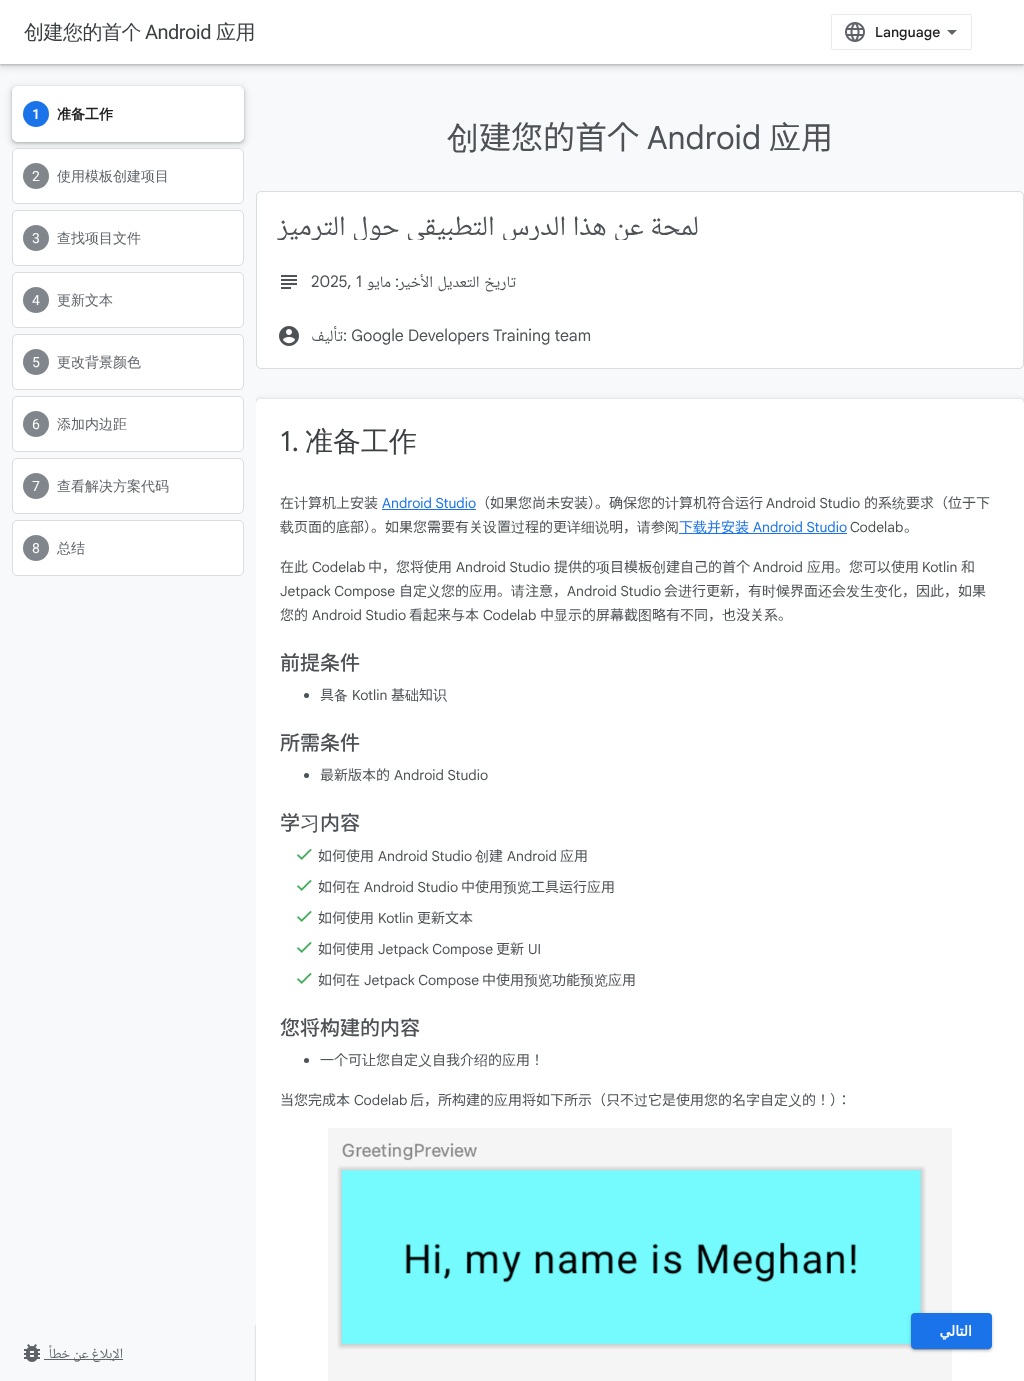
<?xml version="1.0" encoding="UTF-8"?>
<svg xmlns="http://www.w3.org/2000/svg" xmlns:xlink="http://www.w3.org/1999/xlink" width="1024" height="1381">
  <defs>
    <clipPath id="clip1"><rect x="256" y="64" width="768" height="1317" /></clipPath>
    <clipPath id="clip2"><rect x="277" y="212" width="726" height="28" /></clipPath>
  </defs>
  <rect width="100%" height="100%" fill="#f8f9fa" />
  <rect x="-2" width="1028" height="68" fill="#3c4043" fill-opacity="0.15" filter="blur(3px)" />
  <rect y="1" width="1024" height="64" fill="#3c4043" fill-opacity="0.3" filter="blur(1px)" />
  <rect width="1024" height="64" fill="#ffffff" />
  <rect x="831.5" y="14.5" width="140" height="35" rx="1.5" fill="none" stroke="#e8eaed" />
  <image x="845" y="22" width="20" height="20" xlink:href="image1.png" />
  <path d="M 952 35 l -5 -5 h 10 z" fill="#5f6368" />
  <g clip-path="url(#clip1)">
    <rect x="254" y="399" width="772" height="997" rx="6" fill="#3c4043" fill-opacity="0.15" filter="blur(3px)" />
  </g>
  <rect x="256" y="400" width="768" height="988" rx="4" fill="#3c4043" fill-opacity="0.3" filter="blur(1px)" />
  <rect x="254" y="401" width="2" height="924" fill="#f8f9fa" />
  <rect x="10" y="86" width="236" height="60" rx="7" fill="#3c4043" fill-opacity="0.15" filter="blur(3px)" />
  <rect x="12" y="87" width="232" height="56" rx="5" fill="#3c4043" fill-opacity="0.3" filter="blur(1px)" />
  <rect x="12.5" y="86.5" width="231" height="55" rx="4.5" fill="#ffffff" stroke="#ffffff" />
  <circle cx="36" cy="114" r="13" fill="#1a73e8" />
  <rect x="12.5" y="148.5" width="231" height="55" rx="4.5" fill="#ffffff" stroke="#dadce0" />
  <circle cx="36" cy="176" r="13" fill="#80868b" />
  <rect x="12.5" y="210.5" width="231" height="55" rx="4.5" fill="#ffffff" stroke="#dadce0" />
  <circle cx="36" cy="238" r="13" fill="#80868b" />
  <rect x="12.5" y="272.5" width="231" height="55" rx="4.5" fill="#ffffff" stroke="#dadce0" />
  <circle cx="36" cy="300" r="13" fill="#80868b" />
  <rect x="12.5" y="334.5" width="231" height="55" rx="4.5" fill="#ffffff" stroke="#dadce0" />
  <circle cx="36" cy="362" r="13" fill="#80868b" />
  <rect x="12.5" y="396.5" width="231" height="55" rx="4.5" fill="#ffffff" stroke="#dadce0" />
  <circle cx="36" cy="424" r="13" fill="#80868b" />
  <rect x="12.5" y="458.5" width="231" height="55" rx="4.5" fill="#ffffff" stroke="#dadce0" />
  <circle cx="36" cy="486" r="13" fill="#80868b" />
  <rect x="12.5" y="520.5" width="231" height="55" rx="4.5" fill="#ffffff" stroke="#dadce0" />
  <circle cx="36" cy="548" r="13" fill="#80868b" />
  <rect x="256.5" y="191.5" width="767" height="177" rx="4.5" fill="#ffffff" stroke="#dadce0" />
  <image x="281" y="275" width="16" height="14" xlink:href="image2.png" />
  <image x="279" y="326" width="20" height="20" xlink:href="image3.png" />
  <path d="M 260 399 h 760 c 2 0 4 2 4 4 v 978 h -768 v -978 c 0 -2 2 -4 4 -4 z" fill="#ffffff" />
  <rect x="382" y="509" width="94" height="1" fill="#1a73e8" />
  <rect x="679" y="533" width="168" height="1" fill="#1a73e8" />
  <circle cx="306.5" cy="695.5" r="2.5" fill="#4e5256" />
  <circle cx="306.5" cy="775.5" r="2.5" fill="#4e5256" />
  <image x="296" y="848" width="16" height="12" xlink:href="image4.png" />
  <image x="296" y="879" width="16" height="12" xlink:href="image4.png" />
  <image x="296" y="910" width="16" height="12" xlink:href="image4.png" />
  <image x="296" y="941" width="16" height="12" xlink:href="image4.png" />
  <image x="296" y="972" width="16" height="12" xlink:href="image4.png" />
  <circle cx="306.5" cy="1060.5" r="2.5" fill="#4e5256" />
  <image x="328" y="1128" width="624" height="253" xlink:href="image5.png" />
  <rect x="913" y="1318" width="77" height="32" rx="2" fill="#000000" fill-opacity="0.2" filter="blur(0.5px)" />
  <rect x="911" y="1314" width="81" height="36" rx="4" fill="#000000" fill-opacity="0.12" filter="blur(2.5px)" />
  <rect x="911" y="1315" width="81" height="36" rx="4" fill="#000000" fill-opacity="0.14" filter="blur(1px)" />
  <rect x="911" y="1313" width="81" height="36" rx="4" fill="#1a73e8" />
  <image x="24" y="1344" width="16" height="18" xlink:href="image6.png" />
  <rect x="44" y="1359" width="79" height="1" fill="#5f6368" />
  <text x="24" y="39" style="font-family: WenQuanYi Zen Hei; font-size: 20px; font-weight: 500; letter-spacing: -0.5px; fill: #3c4043">创建您的首个</text>
  <text x="145" y="39" style="font-family: Roboto; font-size: 20px; letter-spacing: -0.5px; fill: #3c4043">Android</text>
  <text x="216" y="39" style="font-family: WenQuanYi Zen Hei; font-size: 20px; font-weight: 500; letter-spacing: -0.5px; fill: #3c4043">应用</text>
  <text x="875" y="37" style="font-family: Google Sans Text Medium; font-size: 14px; font-weight: 500; fill: #212121">Language</text>
  <text x="32" y="119" style="font-family: Roboto; font-size: 14px; font-weight: 600; fill: #ffffff">1</text>
  <text x="57" y="119" style="font-family: WenQuanYi Zen Hei; font-size: 14px; font-weight: bold; fill: #212121">准备工作</text>
  <text x="32" y="181" style="font-family: Roboto; font-size: 14px; fill: #ffffff">2</text>
  <text x="57" y="181" style="font-family: WenQuanYi Zen Hei; font-size: 14px; font-weight: 500; fill: #5f6368">使用模板创建项目</text>
  <text x="32" y="243" style="font-family: Roboto; font-size: 14px; fill: #ffffff">3</text>
  <text x="57" y="243" style="font-family: WenQuanYi Zen Hei; font-size: 14px; font-weight: 500; fill: #5f6368">查找项目文件</text>
  <text x="32" y="305" style="font-family: Roboto; font-size: 14px; fill: #ffffff">4</text>
  <text x="57" y="305" style="font-family: WenQuanYi Zen Hei; font-size: 14px; font-weight: 500; fill: #5f6368">更新文本</text>
  <text x="32" y="367" style="font-family: Roboto; font-size: 14px; fill: #ffffff">5</text>
  <text x="57" y="367" style="font-family: WenQuanYi Zen Hei; font-size: 14px; font-weight: 500; fill: #5f6368">更改背景颜色</text>
  <text x="32" y="429" style="font-family: Roboto; font-size: 14px; fill: #ffffff">6</text>
  <text x="57" y="429" style="font-family: WenQuanYi Zen Hei; font-size: 14px; font-weight: 500; fill: #5f6368">添加内边距</text>
  <text x="32" y="491" style="font-family: Roboto; font-size: 14px; fill: #ffffff">7</text>
  <text x="57" y="491" style="font-family: WenQuanYi Zen Hei; font-size: 14px; font-weight: 500; fill: #5f6368">查看解决方案代码</text>
  <text x="32" y="553" style="font-family: Roboto; font-size: 14px; fill: #ffffff">8</text>
  <text x="57" y="553" style="font-family: WenQuanYi Zen Hei; font-size: 14px; font-weight: 500; fill: #5f6368">总结</text>
  <text x="447" y="149" style="font-family: WenQuanYi Zen Hei; font-size: 32px; font-weight: 500; fill: #4e5256">创</text>
  <text x="479" y="149" style="font-family: Noto Sans JP; font-size: 32px; fill: #4e5256">建您的首个</text>
  <text x="647" y="149" style="font-family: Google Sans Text; font-size: 32px; fill: #4e5256">Android</text>
  <text x="769" y="149" style="font-family: WenQuanYi Zen Hei; font-size: 32px; font-weight: 500; fill: #4e5256">应</text>
  <text x="801" y="149" style="font-family: Noto Sans JP; font-size: 32px; fill: #4e5256">用</text>
  <g clip-path="url(#clip2)">
    <text x="699" y="235" word-spacing="0.25" style="font-family: Noto Naskh Arabic; font-size: 28px; direction: rtl; fill: #4e5256">لمحة عن هذا الدرس التطبيقي حول الترميز</text>
  </g>
  <text x="311" y="287" style="font-family: Google Sans Text; font-size: 16px; fill: #4e5256">2025, 1</text>
  <text x="391" y="287" style="font-family: Noto Naskh Arabic; font-size: 16px; direction: rtl; fill: #4e5256">مايو</text>
  <text x="399" y="287" style="font-family: Google Sans Text; font-size: 16px; direction: rtl; fill: #4e5256">:</text>
  <text x="516" y="287" word-spacing="1" style="font-family: Noto Naskh Arabic; font-size: 16px; direction: rtl; fill: #4e5256">تاريخ التعديل الأخير</text>
  <text x="343" y="341" style="font-family: Noto Naskh Arabic; font-size: 16px; direction: rtl; fill: #4e5256">تأليف</text>
  <text x="343" y="341" style="font-family: Google Sans Text; font-size: 16px; fill: #4e5256">: Google Developers Training team</text>
  <text x="280" y="451" style="font-family: Google Sans; font-size: 28px; fill: #3c4043">1.</text>
  <text x="305" y="451" style="font-family: WenQuanYi Zen Hei; font-size: 28px; font-weight: 500; fill: #3c4043">准备工作</text>
  <text x="280" y="508" style="font-family: Noto Sans JP; font-size: 14px; fill: #4e5256">在</text>
  <text x="294" y="508" style="font-family: WenQuanYi Zen Hei; font-size: 14px; font-weight: 500; fill: #4e5256">计</text>
  <text x="308" y="508" style="font-family: Noto Sans JP; font-size: 14px; fill: #4e5256">算机上安装</text>
  <text x="382" y="508" style="font-family: Google Sans Text; font-size: 14px; fill: #1a73e8">Android Studio</text>
  <text x="476" y="508" style="font-family: Noto Sans JP; font-size: 14px; fill: #4e5256">（如果您尚未安装）。确保您的</text>
  <text x="665" y="508" style="font-family: WenQuanYi Zen Hei; font-size: 14px; font-weight: 500; fill: #4e5256">计</text>
  <text x="679" y="508" style="font-family: Noto Sans JP; font-size: 14px; fill: #4e5256">算机符合运行</text>
  <text x="766" y="508" style="font-family: Google Sans Text; font-size: 14px; fill: #4e5256">Android Studio</text>
  <text x="864" y="508" style="font-family: Noto Sans JP; font-size: 14px; fill: #4e5256">的系</text>
  <text x="892" y="508" style="font-family: WenQuanYi Zen Hei; font-size: 14px; font-weight: 500; fill: #4e5256">统</text>
  <text x="906" y="508" style="font-family: Noto Sans JP; font-size: 14px; fill: #4e5256">要求（位于下</text>
  <text x="280" y="532" style="font-family: WenQuanYi Zen Hei; font-size: 14px; font-weight: 500; fill: #4e5256">载</text>
  <text x="294" y="532" style="font-family: Noto Sans JP; font-size: 14px; fill: #4e5256">页面的底部）。如果您需要有关</text>
  <text x="483" y="532" style="font-family: WenQuanYi Zen Hei; font-size: 14px; font-weight: 500; fill: #4e5256">设</text>
  <text x="497" y="532" style="font-family: Noto Sans JP; font-size: 14px; fill: #4e5256">置</text>
  <text x="511" y="532" style="font-family: WenQuanYi Zen Hei; font-size: 14px; font-weight: 500; fill: #4e5256">过</text>
  <text x="525" y="532" style="font-family: Noto Sans JP; font-size: 14px; fill: #4e5256">程的更</text>
  <text x="567" y="532" style="font-family: WenQuanYi Zen Hei; font-size: 14px; font-weight: 500; fill: #4e5256">详细说</text>
  <text x="609" y="532" style="font-family: Noto Sans JP; font-size: 14px; fill: #4e5256">明，</text>
  <text x="637" y="532" style="font-family: WenQuanYi Zen Hei; font-size: 14px; font-weight: 500; fill: #4e5256">请</text>
  <text x="651" y="532" style="font-family: Noto Sans JP; font-size: 14px; fill: #4e5256">参</text>
  <text x="665" y="532" style="font-family: WenQuanYi Zen Hei; font-size: 14px; font-weight: 500; fill: #4e5256">阅</text>
  <text x="679" y="532" style="font-family: Noto Sans JP; font-size: 14px; fill: #1a73e8">下</text>
  <text x="693" y="532" style="font-family: WenQuanYi Zen Hei; font-size: 14px; font-weight: 500; fill: #1a73e8">载</text>
  <text x="707" y="532" style="font-family: Noto Sans JP; font-size: 14px; fill: #1a73e8">并安装</text>
  <text x="753" y="532" style="font-family: Google Sans Text; font-size: 14px; fill: #1a73e8">Android Studio</text>
  <text x="850" y="532" style="font-family: Google Sans Text; font-size: 14px; fill: #4e5256">Codelab</text>
  <text x="904" y="532" style="font-family: Noto Sans JP; font-size: 14px; fill: #4e5256">。</text>
  <text x="280" y="572" style="font-family: Noto Sans JP; font-size: 14px; fill: #4e5256">在此</text>
  <text x="312" y="572" style="font-family: Google Sans Text; font-size: 14px; fill: #4e5256">Codelab</text>
  <text x="368" y="572" style="font-family: Noto Sans JP; font-size: 14px; fill: #4e5256">中，您将使用</text>
  <text x="456" y="572" style="font-family: Google Sans Text; font-size: 14px; fill: #4e5256">Android Studio</text>
  <text x="554" y="572" style="font-family: Noto Sans JP; font-size: 14px; fill: #4e5256">提供的</text>
  <text x="596" y="572" style="font-family: WenQuanYi Zen Hei; font-size: 14px; font-weight: 500; fill: #4e5256">项</text>
  <text x="610" y="572" style="font-family: Noto Sans JP; font-size: 14px; fill: #4e5256">目模板</text>
  <text x="652" y="572" style="font-family: WenQuanYi Zen Hei; font-size: 14px; font-weight: 500; fill: #4e5256">创</text>
  <text x="666" y="572" style="font-family: Noto Sans JP; font-size: 14px; fill: #4e5256">建自己的首个</text>
  <text x="753" y="572" style="font-family: Google Sans Text; font-size: 14px; fill: #4e5256">Android</text>
  <text x="807" y="572" style="font-family: WenQuanYi Zen Hei; font-size: 14px; font-weight: 500; fill: #4e5256">应</text>
  <text x="821" y="572" style="font-family: Noto Sans JP; font-size: 14px; fill: #4e5256">用。您可以使用</text>
  <text x="922" y="572" style="font-family: Google Sans Text; font-size: 14px; fill: #4e5256">Kotlin</text>
  <text x="961" y="572" style="font-family: Noto Sans JP; font-size: 14px; fill: #4e5256">和</text>
  <text x="280" y="596" style="font-family: Google Sans Text; font-size: 14px; fill: #4e5256">Jetpack Compose</text>
  <text x="399" y="596" style="font-family: Noto Sans JP; font-size: 14px; fill: #4e5256">自定</text>
  <text x="427" y="596" style="font-family: WenQuanYi Zen Hei; font-size: 14px; font-weight: 500; fill: #4e5256">义</text>
  <text x="441" y="596" style="font-family: Noto Sans JP; font-size: 14px; fill: #4e5256">您的</text>
  <text x="469" y="596" style="font-family: WenQuanYi Zen Hei; font-size: 14px; font-weight: 500; fill: #4e5256">应</text>
  <text x="483" y="596" style="font-family: Noto Sans JP; font-size: 14px; fill: #4e5256">用。</text>
  <text x="511" y="596" style="font-family: WenQuanYi Zen Hei; font-size: 14px; font-weight: 500; fill: #4e5256">请</text>
  <text x="525" y="596" style="font-family: Noto Sans JP; font-size: 14px; fill: #4e5256">注意，</text>
  <text x="567" y="596" style="font-family: Google Sans Text; font-size: 14px; fill: #4e5256">Android Studio</text>
  <text x="664" y="596" style="font-family: Noto Sans JP; font-size: 14px; fill: #4e5256">会</text>
  <text x="678" y="596" style="font-family: WenQuanYi Zen Hei; font-size: 14px; font-weight: 500; fill: #4e5256">进</text>
  <text x="692" y="596" style="font-family: Noto Sans JP; font-size: 14px; fill: #4e5256">行更新，有</text>
  <text x="762" y="596" style="font-family: WenQuanYi Zen Hei; font-size: 14px; font-weight: 500; fill: #4e5256">时</text>
  <text x="776" y="596" style="font-family: Noto Sans JP; font-size: 14px; fill: #4e5256">候界面</text>
  <text x="818" y="596" style="font-family: WenQuanYi Zen Hei; font-size: 14px; font-weight: 500; fill: #4e5256">还</text>
  <text x="832" y="596" style="font-family: Noto Sans JP; font-size: 14px; fill: #4e5256">会</text>
  <text x="846" y="596" style="font-family: WenQuanYi Zen Hei; font-size: 14px; font-weight: 500; fill: #4e5256">发</text>
  <text x="860" y="596" style="font-family: Noto Sans JP; font-size: 14px; fill: #4e5256">生</text>
  <text x="874" y="596" style="font-family: WenQuanYi Zen Hei; font-size: 14px; font-weight: 500; fill: #4e5256">变</text>
  <text x="888" y="596" style="font-family: Noto Sans JP; font-size: 14px; fill: #4e5256">化，因此，如果</text>
  <text x="280" y="620" style="font-family: Noto Sans JP; font-size: 14px; fill: #4e5256">您的</text>
  <text x="312" y="620" style="font-family: Google Sans Text; font-size: 14px; fill: #4e5256">Android Studio</text>
  <text x="409" y="620" style="font-family: Noto Sans JP; font-size: 14px; fill: #4e5256">看起来与本</text>
  <text x="483" y="620" style="font-family: Google Sans Text; font-size: 14px; fill: #4e5256">Codelab</text>
  <text x="540" y="620" style="font-family: Noto Sans JP; font-size: 14px; fill: #4e5256">中</text>
  <text x="554" y="620" style="font-family: WenQuanYi Zen Hei; font-size: 14px; font-weight: 500; fill: #4e5256">显</text>
  <text x="568" y="620" style="font-family: Noto Sans JP; font-size: 14px; fill: #4e5256">示的屏幕截</text>
  <text x="638" y="620" style="font-family: WenQuanYi Zen Hei; font-size: 14px; font-weight: 500; fill: #4e5256">图</text>
  <text x="652" y="620" style="font-family: Noto Sans JP; font-size: 14px; fill: #4e5256">略有不同，也没关系。</text>
  <text x="280" y="670" style="font-family: Noto Sans JP; font-size: 20px; font-weight: 500; fill: #4e5256">前提条件</text>
  <text x="320" y="700" style="font-family: Noto Sans JP; font-size: 14px; fill: #4e5256">具</text>
  <text x="334" y="700" style="font-family: WenQuanYi Zen Hei; font-size: 14px; font-weight: 500; fill: #4e5256">备</text>
  <text x="352" y="700" style="font-family: Google Sans Text; font-size: 14px; fill: #4e5256">Kotlin</text>
  <text x="391" y="700" style="font-family: Noto Sans JP; font-size: 14px; fill: #4e5256">基</text>
  <text x="405" y="700" style="font-family: WenQuanYi Zen Hei; font-size: 14px; font-weight: 500; fill: #4e5256">础</text>
  <text x="419" y="700" style="font-family: Noto Sans JP; font-size: 14px; fill: #4e5256">知</text>
  <text x="433" y="700" style="font-family: WenQuanYi Zen Hei; font-size: 14px; font-weight: 500; fill: #4e5256">识</text>
  <text x="280" y="750" style="font-family: Noto Sans JP; font-size: 20px; font-weight: 500; fill: #4e5256">所需条件</text>
  <text x="320" y="780" style="font-family: Noto Sans JP; font-size: 14px; fill: #4e5256">最新版本的</text>
  <text x="394" y="780" style="font-family: Google Sans Text; font-size: 14px; fill: #4e5256">Android Studio</text>
  <text x="280" y="830" style="font-family: Noto Sans JP; font-size: 20px; font-weight: 500; fill: #4e5256">学</text>
  <text x="300" y="830" style="font-family: WenQuanYi Zen Hei; font-size: 20px; font-weight: 500; fill: #4e5256">习</text>
  <text x="320" y="830" style="font-family: Noto Sans JP; font-size: 20px; font-weight: 500; fill: #4e5256">内容</text>
  <text x="318" y="861" style="font-family: Noto Sans JP; font-size: 14px; fill: #4e5256">如何使用</text>
  <text x="378" y="861" style="font-family: Google Sans Text; font-size: 14px; fill: #4e5256">Android Studio</text>
  <text x="475" y="861" style="font-family: WenQuanYi Zen Hei; font-size: 14px; font-weight: 500; fill: #4e5256">创</text>
  <text x="489" y="861" style="font-family: Noto Sans JP; font-size: 14px; fill: #4e5256">建</text>
  <text x="507" y="861" style="font-family: Google Sans Text; font-size: 14px; fill: #4e5256">Android</text>
  <text x="560" y="861" style="font-family: WenQuanYi Zen Hei; font-size: 14px; font-weight: 500; fill: #4e5256">应</text>
  <text x="574" y="861" style="font-family: Noto Sans JP; font-size: 14px; fill: #4e5256">用</text>
  <text x="318" y="892" style="font-family: Noto Sans JP; font-size: 14px; fill: #4e5256">如何在</text>
  <text x="364" y="892" style="font-family: Google Sans Text; font-size: 14px; fill: #4e5256">Android Studio</text>
  <text x="461" y="892" style="font-family: Noto Sans JP; font-size: 14px; fill: #4e5256">中使用</text>
  <text x="503" y="892" style="font-family: WenQuanYi Zen Hei; font-size: 14px; font-weight: 500; fill: #4e5256">预览</text>
  <text x="531" y="892" style="font-family: Noto Sans JP; font-size: 14px; fill: #4e5256">工具运行</text>
  <text x="587" y="892" style="font-family: WenQuanYi Zen Hei; font-size: 14px; font-weight: 500; fill: #4e5256">应</text>
  <text x="601" y="892" style="font-family: Noto Sans JP; font-size: 14px; fill: #4e5256">用</text>
  <text x="318" y="923" style="font-family: Noto Sans JP; font-size: 14px; fill: #4e5256">如何使用</text>
  <text x="378" y="923" style="font-family: Google Sans Text; font-size: 14px; fill: #4e5256">Kotlin</text>
  <text x="417" y="923" style="font-family: Noto Sans JP; font-size: 14px; fill: #4e5256">更新文本</text>
  <text x="318" y="954" style="font-family: Noto Sans JP; font-size: 14px; fill: #4e5256">如何使用</text>
  <text x="378" y="954" style="font-family: Google Sans Text; font-size: 14px; fill: #4e5256">Jetpack Compose</text>
  <text x="496" y="954" style="font-family: Noto Sans JP; font-size: 14px; fill: #4e5256">更新</text>
  <text x="528" y="954" style="font-family: Google Sans Text; font-size: 14px; fill: #4e5256">UI</text>
  <text x="318" y="985" style="font-family: Noto Sans JP; font-size: 14px; fill: #4e5256">如何在</text>
  <text x="364" y="985" style="font-family: Google Sans Text; font-size: 14px; fill: #4e5256">Jetpack Compose</text>
  <text x="482" y="985" style="font-family: Noto Sans JP; font-size: 14px; fill: #4e5256">中使用</text>
  <text x="524" y="985" style="font-family: WenQuanYi Zen Hei; font-size: 14px; font-weight: 500; fill: #4e5256">预览</text>
  <text x="552" y="985" style="font-family: Noto Sans JP; font-size: 14px; fill: #4e5256">功能</text>
  <text x="580" y="985" style="font-family: WenQuanYi Zen Hei; font-size: 14px; font-weight: 500; fill: #4e5256">预览应</text>
  <text x="622" y="985" style="font-family: Noto Sans JP; font-size: 14px; fill: #4e5256">用</text>
  <text x="280" y="1035" style="font-family: Noto Sans JP; font-size: 20px; font-weight: 500; fill: #4e5256">您将构建的内容</text>
  <text x="320" y="1065" style="font-family: Noto Sans JP; font-size: 14px; fill: #4e5256">一个可</text>
  <text x="362" y="1065" style="font-family: WenQuanYi Zen Hei; font-size: 14px; font-weight: 500; fill: #4e5256">让</text>
  <text x="376" y="1065" style="font-family: Noto Sans JP; font-size: 14px; fill: #4e5256">您自定</text>
  <text x="418" y="1065" style="font-family: WenQuanYi Zen Hei; font-size: 14px; font-weight: 500; fill: #4e5256">义</text>
  <text x="432" y="1065" style="font-family: Noto Sans JP; font-size: 14px; fill: #4e5256">自我介</text>
  <text x="474" y="1065" style="font-family: WenQuanYi Zen Hei; font-size: 14px; font-weight: 500; fill: #4e5256">绍</text>
  <text x="488" y="1065" style="font-family: Noto Sans JP; font-size: 14px; fill: #4e5256">的</text>
  <text x="502" y="1065" style="font-family: WenQuanYi Zen Hei; font-size: 14px; font-weight: 500; fill: #4e5256">应</text>
  <text x="516" y="1065" style="font-family: Noto Sans JP; font-size: 14px; fill: #4e5256">用！</text>
  <text x="280" y="1105" style="font-family: Noto Sans JP; font-size: 14px; fill: #4e5256">当您完成本</text>
  <text x="354" y="1105" style="font-family: Google Sans Text; font-size: 14px; fill: #4e5256">Codelab</text>
  <text x="410" y="1105" style="font-family: Noto Sans JP; font-size: 14px; fill: #4e5256">后，所构建的</text>
  <text x="494" y="1105" style="font-family: WenQuanYi Zen Hei; font-size: 14px; font-weight: 500; fill: #4e5256">应</text>
  <text x="508" y="1105" style="font-family: Noto Sans JP; font-size: 14px; fill: #4e5256">用将如下所示（只不</text>
  <text x="634" y="1105" style="font-family: WenQuanYi Zen Hei; font-size: 14px; font-weight: 500; fill: #4e5256">过</text>
  <text x="648" y="1105" style="font-family: Noto Sans JP; font-size: 14px; fill: #4e5256">它是使用您的名字自定</text>
  <text x="788" y="1105" style="font-family: WenQuanYi Zen Hei; font-size: 14px; font-weight: 500; fill: #4e5256">义</text>
  <text x="802" y="1105" style="font-family: Noto Sans JP; font-size: 14px; fill: #4e5256">的！）：</text>
  <text x="972" y="1336" style="font-family: DejaVu Sans; font-size: 14px; font-weight: bold; letter-spacing: 0.5px; direction: rtl; fill: #ffffff">التالي</text>
  <text x="123" y="1358" style="font-family: Noto Naskh Arabic; font-size: 14px; direction: rtl; fill: #5f6368">الإبلاغ عن خطأ</text>
</svg>
